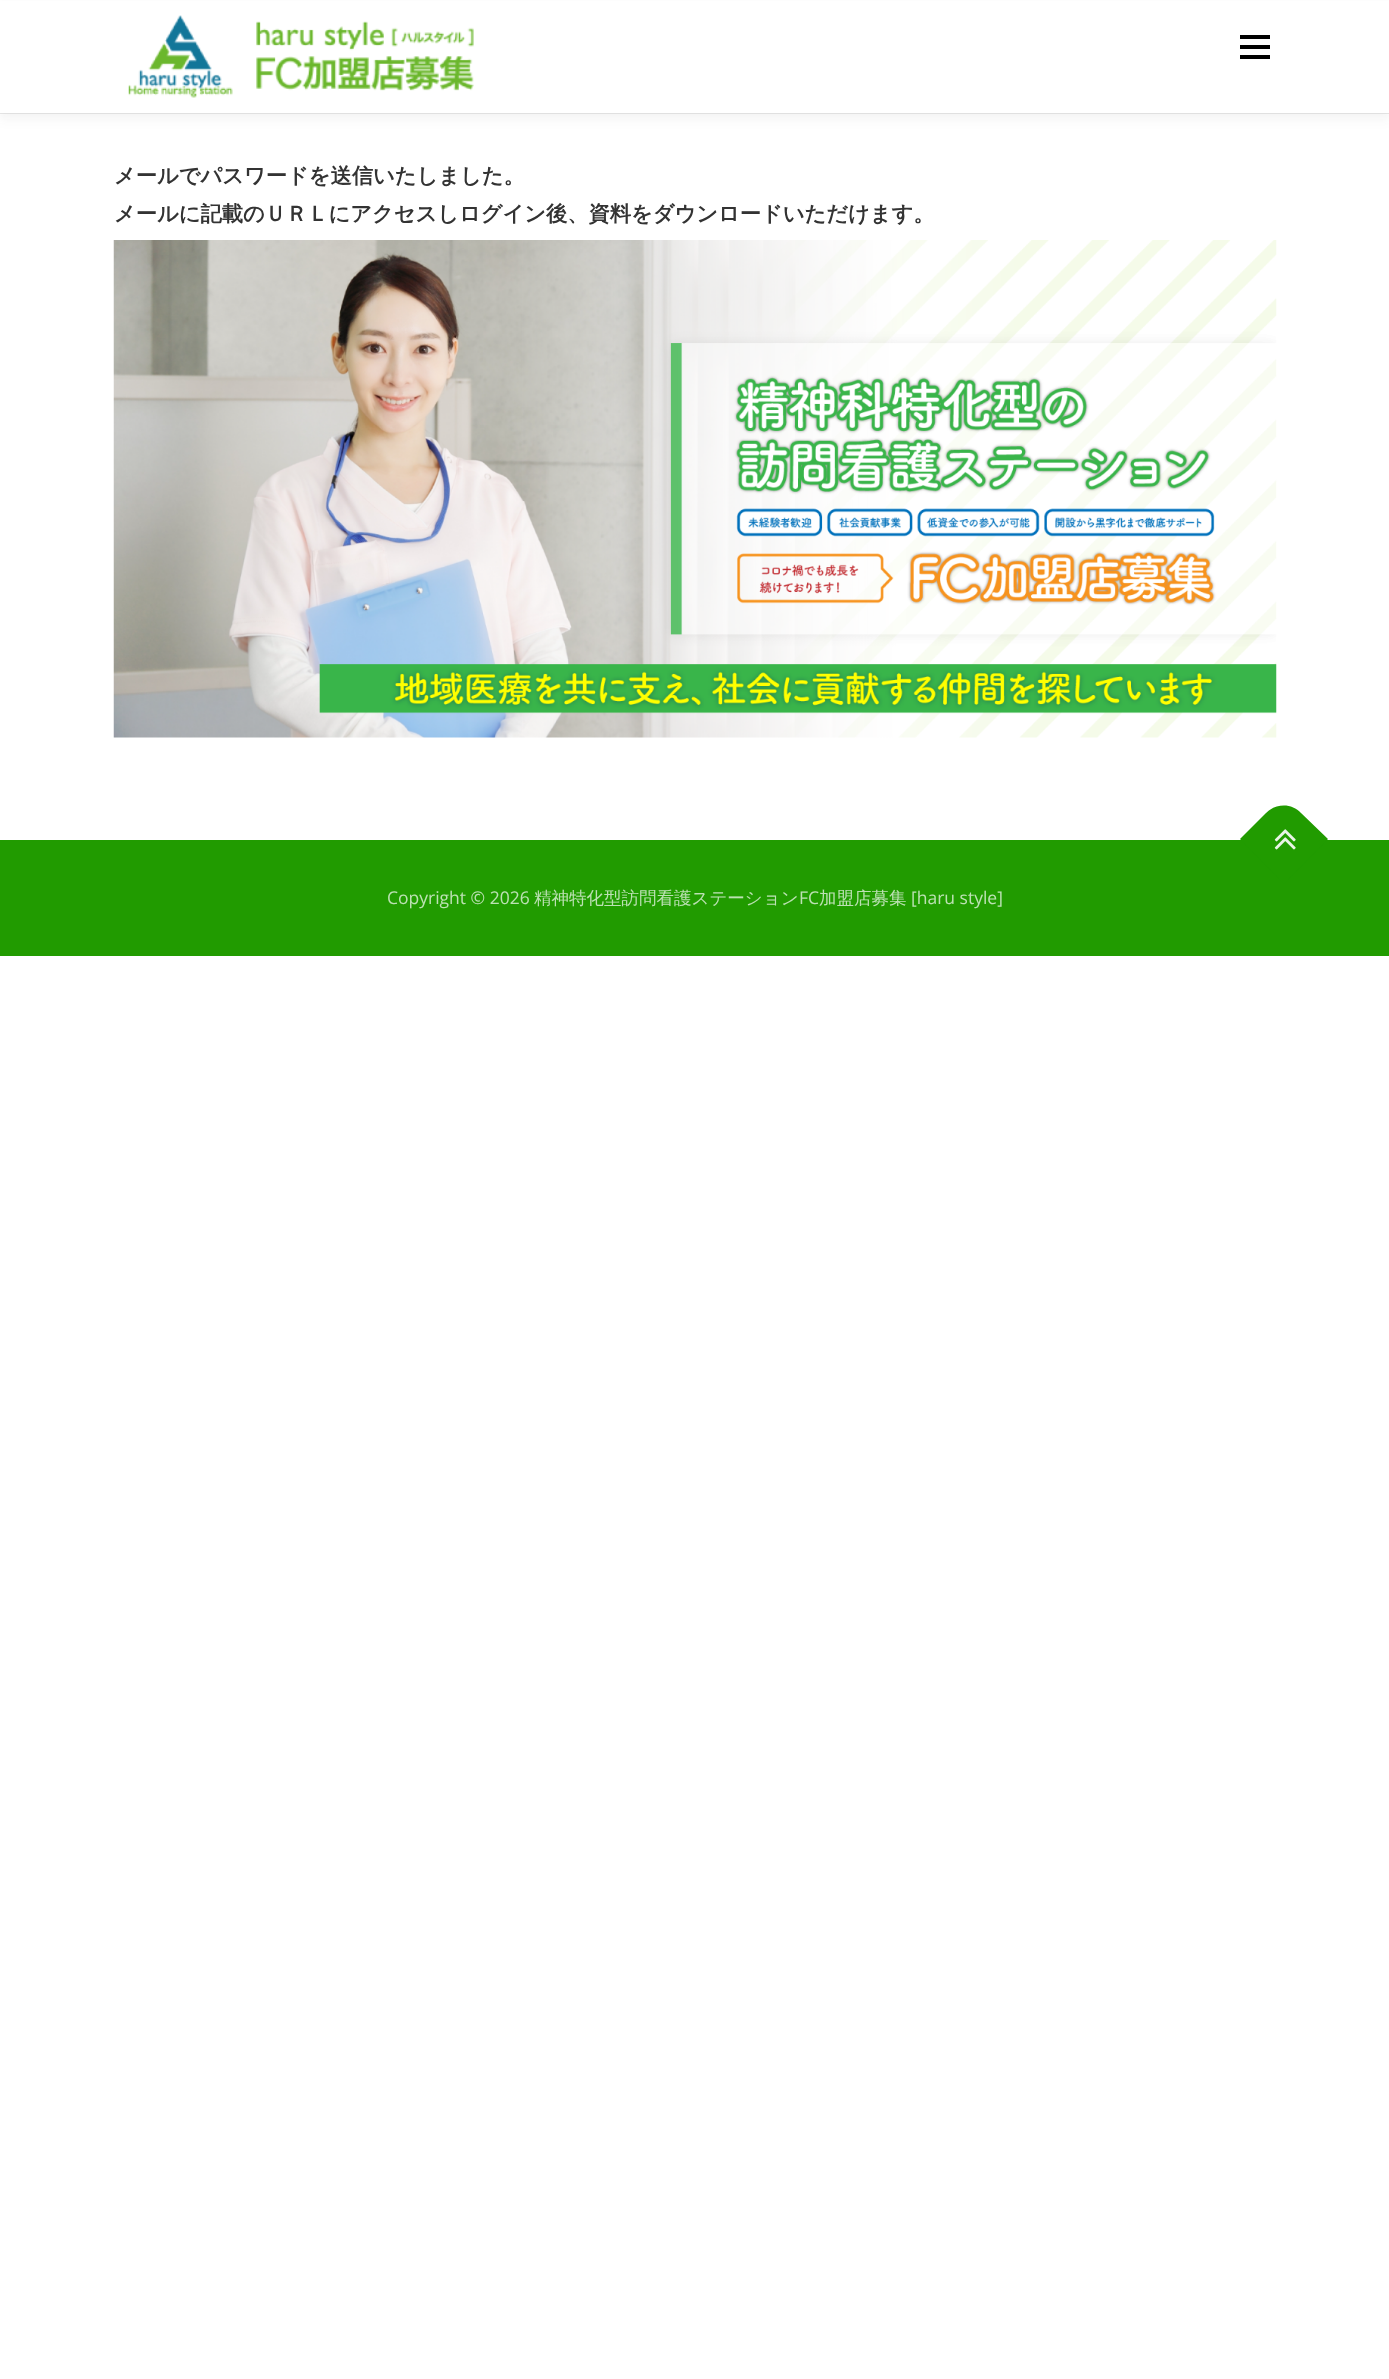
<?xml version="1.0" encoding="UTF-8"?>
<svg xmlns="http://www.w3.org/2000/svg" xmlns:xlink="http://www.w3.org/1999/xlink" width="1389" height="2379">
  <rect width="100%" height="100%" fill="#ffffff" />
  <rect y="113" width="1389" height="1" fill="#e9e9e9" />
  <rect y="6" width="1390" height="113" fill="#323232" fill-opacity="0.06" filter="blur(6px)" />
  <rect y="1" width="1389" height="112" fill="#ffffff" />
  <image x="128" y="15" width="346" height="83" xlink:href="image1.png" />
  <rect x="1240" y="45" width="30" height="4" fill="#000000" />
  <rect x="1240" y="35" width="30" height="4" fill="#000000" />
  <rect x="1240" y="55" width="30" height="4" fill="#000000" />
  <image x="113" y="240" width="1164" height="498" xlink:href="image2.png" />
  <rect y="840" width="1389" height="116" fill="#219b00" />
  <path d="M 1240 839 l 26 -26 c 10 -10 26 -10 35 0 l 27 26 l -44 45 z" fill="#219b00" />
  <image x="1274" y="829" width="22" height="21" xlink:href="image3.png" />
  <text x="114" y="183" style="font-family: WenQuanYi Zen Hei; font-size: 21.25px; font-weight: bold; fill: #333333">メールでパスワードを送信いたしました。</text>
  <text x="114" y="221" style="font-family: WenQuanYi Zen Hei; font-size: 21.25px; font-weight: bold; fill: #333333">メールに記載のＵＲＬにアクセスしログイン後、資料をダウンロードいただけます。</text>
  <text x="387" y="904" style="font-family: Open Sans; font-size: 17.5px; fill: #bce1b3">Copyright © 2026</text>
  <text x="534" y="904" style="font-family: WenQuanYi Zen Hei; font-size: 17.5px; font-weight: 500; fill: #bce1b3">精神特化型訪問看護ステーション</text>
  <text x="799" y="904" style="font-family: Open Sans; font-size: 17.5px; fill: #bce1b3">FC</text>
  <text x="819" y="904" style="font-family: WenQuanYi Zen Hei; font-size: 17.5px; font-weight: 500; fill: #bce1b3">加盟店募集</text>
  <text x="911" y="904" style="font-family: Open Sans; font-size: 17.5px; fill: #bce1b3">[haru style]</text>
</svg>
